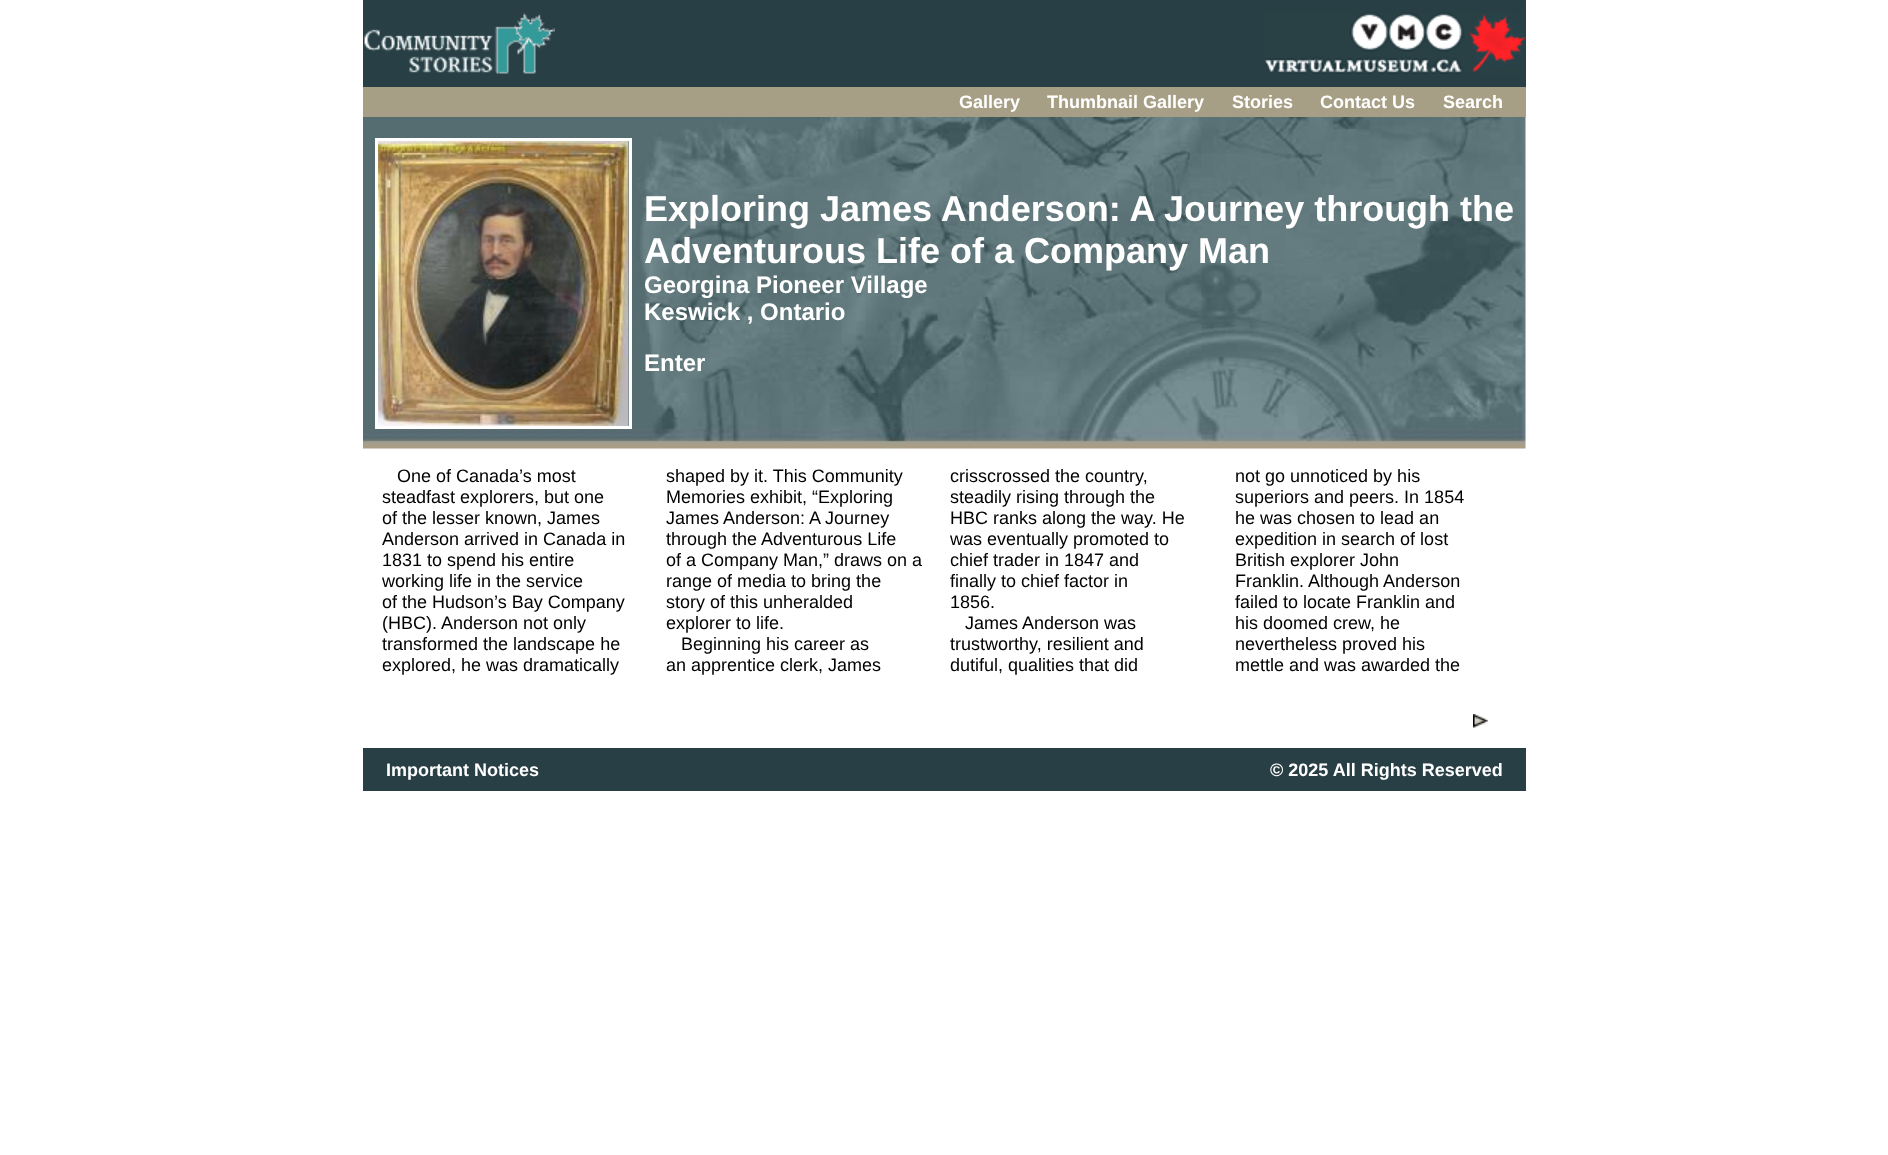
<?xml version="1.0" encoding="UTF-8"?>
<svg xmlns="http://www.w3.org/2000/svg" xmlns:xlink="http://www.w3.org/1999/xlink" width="1888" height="1155">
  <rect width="100%" height="100%" fill="#ffffff" />
  <rect x="363" width="1163" height="87" fill="#283f45" />
  <image x="364" y="13" width="191" height="61" xlink:href="image1.png" />
  <image x="1263" y="12" width="263" height="62" xlink:href="image2.png" />
  <rect x="363" y="87" width="1163" height="30" fill="#a79f85" />
  <image x="363" y="117" width="1163" height="332" xlink:href="image3.png" />
  <rect x="376.5" y="139.5" width="254" height="288" fill="none" stroke="#ffffff" stroke-width="3" />
  <image x="378" y="141" width="251" height="285" xlink:href="image4.png" />
  <image x="1473" y="714" width="15" height="14" xlink:href="image5.png" />
  <rect x="363" y="748" width="1163" height="43" fill="#283f45" />
  <text x="959" y="108" style="font-family: Liberation Sans; font-size: 18px; font-weight: bold; fill: #ffffff">Gallery</text>
  <text x="1047" y="108" style="font-family: Liberation Sans; font-size: 18px; font-weight: bold; fill: #ffffff">Thumbnail Gallery</text>
  <text x="1232" y="108" style="font-family: Liberation Sans; font-size: 18px; font-weight: bold; fill: #ffffff">Stories</text>
  <text x="1320" y="108" style="font-family: Liberation Sans; font-size: 18px; font-weight: bold; fill: #ffffff">Contact Us</text>
  <text x="1443" y="108" style="font-family: Liberation Sans; font-size: 18px; font-weight: bold; fill: #ffffff">Search</text>
  <text x="644" y="221" style="font-family: Liberation Sans; font-size: 36px; font-weight: bold; fill: #ffffff">Exploring James Anderson: A Journey through the</text>
  <text x="644" y="263" style="font-family: Liberation Sans; font-size: 36px; font-weight: bold; fill: #ffffff">Adventurous Life of a Company Man</text>
  <text x="644" y="293" style="font-family: Liberation Sans; font-size: 24px; font-weight: bold; fill: #ffffff">Georgina Pioneer Village</text>
  <text x="644" y="320" style="font-family: Liberation Sans; font-size: 24px; font-weight: bold; fill: #ffffff">Keswick , Ontario</text>
  <text x="644" y="371" style="font-family: Liberation Sans; font-size: 24px; font-weight: bold; fill: #ffffff">Enter</text>
  <text x="397" y="482" style="font-family: Liberation Sans; font-size: 18px; fill: #000000">One of Canada’s most</text>
  <text x="382" y="503" style="font-family: Liberation Sans; font-size: 18px; fill: #000000">steadfast explorers, but one</text>
  <text x="382" y="524" style="font-family: Liberation Sans; font-size: 18px; fill: #000000">of the lesser known, James</text>
  <text x="382" y="545" style="font-family: Liberation Sans; font-size: 18px; fill: #000000">Anderson arrived in Canada in</text>
  <text x="382" y="566" style="font-family: Liberation Sans; font-size: 18px; fill: #000000">1831 to spend his entire</text>
  <text x="382" y="587" style="font-family: Liberation Sans; font-size: 18px; fill: #000000">working life in the service</text>
  <text x="382" y="608" style="font-family: Liberation Sans; font-size: 18px; fill: #000000">of the Hudson’s Bay Company</text>
  <text x="382" y="629" style="font-family: Liberation Sans; font-size: 18px; fill: #000000">(HBC). Anderson not only</text>
  <text x="382" y="650" style="font-family: Liberation Sans; font-size: 18px; fill: #000000">transformed the landscape he</text>
  <text x="382" y="671" style="font-family: Liberation Sans; font-size: 18px; fill: #000000">explored, he was dramatically</text>
  <text x="666" y="482" style="font-family: Liberation Sans; font-size: 18px; fill: #000000">shaped by it. This Community</text>
  <text x="666" y="503" style="font-family: Liberation Sans; font-size: 18px; fill: #000000">Memories exhibit, “Exploring</text>
  <text x="666" y="524" style="font-family: Liberation Sans; font-size: 18px; fill: #000000">James Anderson: A Journey</text>
  <text x="666" y="545" style="font-family: Liberation Sans; font-size: 18px; fill: #000000">through the Adventurous Life</text>
  <text x="666" y="566" style="font-family: Liberation Sans; font-size: 18px; fill: #000000">of a Company Man,” draws on a</text>
  <text x="666" y="587" style="font-family: Liberation Sans; font-size: 18px; fill: #000000">range of media to bring the</text>
  <text x="666" y="608" style="font-family: Liberation Sans; font-size: 18px; fill: #000000">story of this unheralded</text>
  <text x="666" y="629" style="font-family: Liberation Sans; font-size: 18px; fill: #000000">explorer to life.</text>
  <text x="681" y="650" style="font-family: Liberation Sans; font-size: 18px; fill: #000000">Beginning his career as</text>
  <text x="666" y="671" style="font-family: Liberation Sans; font-size: 18px; fill: #000000">an apprentice clerk, James</text>
  <text x="950" y="482" style="font-family: Liberation Sans; font-size: 18px; fill: #000000">crisscrossed the country,</text>
  <text x="950" y="503" style="font-family: Liberation Sans; font-size: 18px; fill: #000000">steadily rising through the</text>
  <text x="950" y="524" style="font-family: Liberation Sans; font-size: 18px; fill: #000000">HBC ranks along the way. He</text>
  <text x="950" y="545" style="font-family: Liberation Sans; font-size: 18px; fill: #000000">was eventually promoted to</text>
  <text x="950" y="566" style="font-family: Liberation Sans; font-size: 18px; fill: #000000">chief trader in 1847 and</text>
  <text x="950" y="587" style="font-family: Liberation Sans; font-size: 18px; fill: #000000">finally to chief factor in</text>
  <text x="950" y="608" style="font-family: Liberation Sans; font-size: 18px; fill: #000000">1856.</text>
  <text x="965" y="629" style="font-family: Liberation Sans; font-size: 18px; fill: #000000">James Anderson was</text>
  <text x="950" y="650" style="font-family: Liberation Sans; font-size: 18px; fill: #000000">trustworthy, resilient and</text>
  <text x="950" y="671" style="font-family: Liberation Sans; font-size: 18px; fill: #000000">dutiful, qualities that did</text>
  <text x="1235" y="482" style="font-family: Liberation Sans; font-size: 18px; fill: #000000">not go unnoticed by his</text>
  <text x="1235" y="503" style="font-family: Liberation Sans; font-size: 18px; fill: #000000">superiors and peers. In 1854</text>
  <text x="1235" y="524" style="font-family: Liberation Sans; font-size: 18px; fill: #000000">he was chosen to lead an</text>
  <text x="1235" y="545" style="font-family: Liberation Sans; font-size: 18px; fill: #000000">expedition in search of lost</text>
  <text x="1235" y="566" style="font-family: Liberation Sans; font-size: 18px; fill: #000000">British explorer John</text>
  <text x="1235" y="587" style="font-family: Liberation Sans; font-size: 18px; fill: #000000">Franklin. Although Anderson</text>
  <text x="1235" y="608" style="font-family: Liberation Sans; font-size: 18px; fill: #000000">failed to locate Franklin and</text>
  <text x="1235" y="629" style="font-family: Liberation Sans; font-size: 18px; fill: #000000">his doomed crew, he</text>
  <text x="1235" y="650" style="font-family: Liberation Sans; font-size: 18px; fill: #000000">nevertheless proved his</text>
  <text x="1235" y="671" style="font-family: Liberation Sans; font-size: 18px; fill: #000000">mettle and was awarded the</text>
  <text x="386" y="776" style="font-family: Liberation Sans; font-size: 18px; font-weight: bold; fill: #ffffff">Important Notices</text>
  <text x="1270" y="776" style="font-family: Liberation Sans; font-size: 18px; font-weight: bold; fill: #ffffff">© 2025 All Rights Reserved</text>
</svg>
